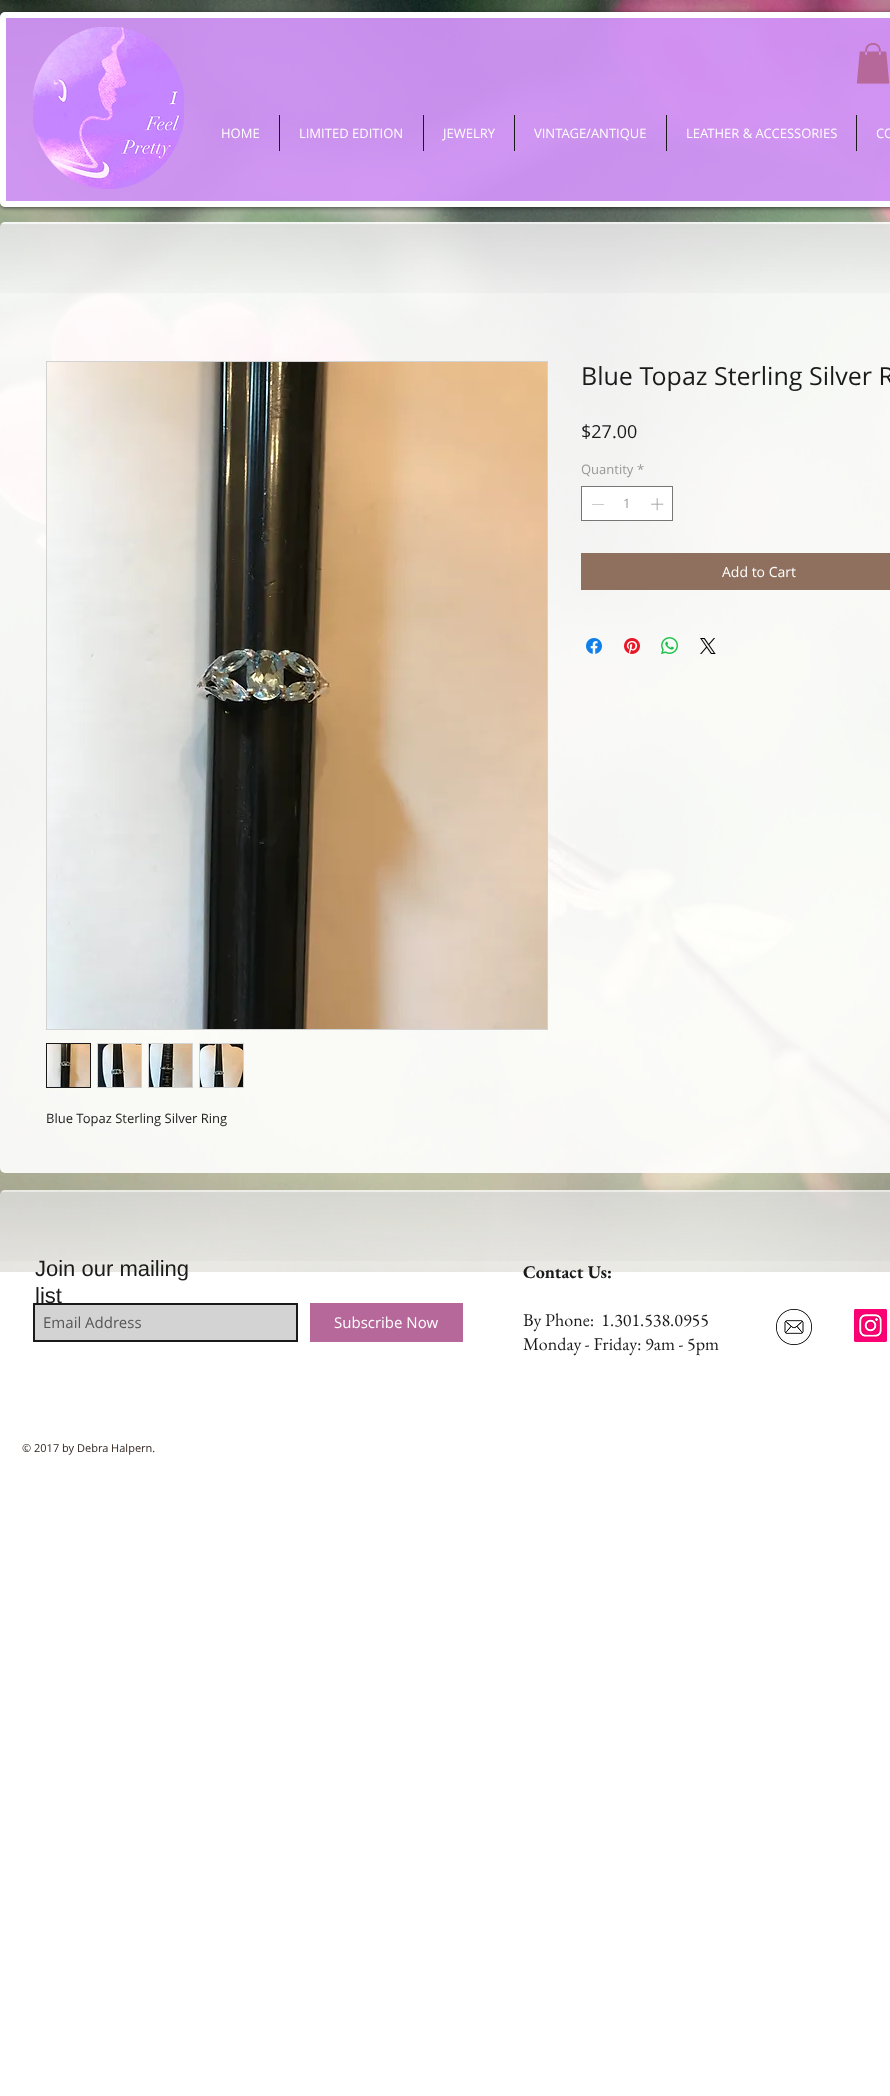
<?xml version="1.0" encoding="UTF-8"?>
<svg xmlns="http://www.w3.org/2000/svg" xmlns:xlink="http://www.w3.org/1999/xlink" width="890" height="2096">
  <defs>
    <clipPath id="clip1"><path d="M 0 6 h 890 v 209 h -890 z m 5 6 h 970 c 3 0 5 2 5 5 v 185 c 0 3 -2 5 -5 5 h -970 c -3 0 -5 -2 -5 -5 v -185 c 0 -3 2 -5 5 -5 z" clip-rule="evenodd" /></clipPath>
  </defs>
  <rect width="100%" height="100%" fill="#ffffff" />
  <image x="0" y="0" width="890" height="1272" xlink:href="image1.png" />
  <g clip-path="url(#clip1)">
    <rect y="13" width="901" height="195" rx="5" fill="#000000" fill-opacity="0.6" filter="blur(2px)" />
  </g>
  <rect x="3" y="15" width="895" height="189" rx="2" fill="#d194f7" fill-opacity="0.94" stroke="#ffffff" stroke-width="6" />
  <image x="33" y="27" width="151" height="162" xlink:href="image2.png" />
  <image x="856" y="43" width="34" height="41" xlink:href="image3.png" />
  <rect x="279" y="115" width="1" height="36" fill="#1a1a1a" />
  <rect x="423" y="115" width="1" height="36" fill="#1a1a1a" />
  <rect x="514" y="115" width="1" height="36" fill="#1a1a1a" />
  <rect x="666" y="115" width="1" height="36" fill="#1a1a1a" />
  <rect x="856" y="115" width="1" height="36" fill="#1a1a1a" />
  <rect y="222" width="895" height="951" rx="5" fill="#ffffff" fill-opacity="0.9" />
  <image x="0" y="224" width="890" height="69" xlink:href="image4.png" />
  <rect x="581.5" y="486.5" width="91" height="34" fill="#ffffff" stroke="#767676" />
  <path d="M 604 504 v 0.5 h -12 v -0.5 z" fill="#999797" fill-rule="evenodd" />
  <image x="651" y="498" width="13" height="13" xlink:href="image5.png" />
  <rect x="581" y="553" width="309" height="37" fill="#8f705e" />
  <image x="586" y="638" width="16" height="16" xlink:href="image6.png" />
  <image x="624" y="638" width="16" height="16" xlink:href="image7.png" />
  <image x="661" y="637" width="17" height="17" xlink:href="image8.png" />
  <image x="700" y="638" width="16" height="16" xlink:href="image9.png" />
  <rect x="46.5" y="361.5" width="501" height="668" fill="none" stroke="#d4d3d3" />
  <image x="47" y="362" width="500" height="667" xlink:href="image10.png" />
  <rect x="46.5" y="1043.5" width="44" height="44" fill="none" stroke="#1a1a1a" />
  <image x="47" y="1044" width="43" height="43" xlink:href="image11.png" />
  <rect x="97" y="1043" width="45" height="45" fill="#d4d3d3" />
  <image x="98" y="1044" width="43" height="43" xlink:href="image12.png" />
  <rect x="148" y="1043" width="45" height="45" fill="#d4d3d3" />
  <image x="149" y="1044" width="43" height="43" xlink:href="image13.png" />
  <rect x="199" y="1043" width="45" height="45" fill="#d4d3d3" />
  <image x="200" y="1044" width="43" height="43" xlink:href="image14.png" />
  <rect y="1190" width="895" height="232" rx="5" fill="#ffffff" fill-opacity="0.75" />
  <image x="0" y="1192" width="890" height="69" xlink:href="image15.png" />
  <rect x="310" y="1303" width="153" height="39" fill="#b6689a" />
  <image x="776" y="1309" width="36" height="36" xlink:href="image16.png" />
  <image x="854" y="1309" width="33" height="33" xlink:href="image17.png" />
  <text x="221" y="138" style="font-family: Open Sans; font-size: 13px; fill: #ffffff">HOME</text>
  <text x="299" y="138" style="font-family: Open Sans; font-size: 13px; fill: #ffffff">LIMITED EDITION</text>
  <text x="443" y="138" style="font-family: Open Sans; font-size: 13px; fill: #ffffff">JEWELRY</text>
  <text x="534" y="138" style="font-family: Open Sans; font-size: 13px; fill: #ffffff">VINTAGE/ANTIQUE</text>
  <text x="686" y="138" style="font-family: Open Sans; font-size: 13px; fill: #ffffff">LEATHER &amp; ACCESSORIES</text>
  <text x="876" y="138" style="font-family: Open Sans; font-size: 13px; fill: #ffffff">CO</text>
  <text x="581" y="385" style="font-family: Open Sans; font-size: 25px; fill: #1a1a1a">Blue Topaz Sterling Silver R</text>
  <text x="581" y="438" style="font-family: Open Sans; font-size: 18px; fill: #1a1a1a">$27.00</text>
  <text x="581" y="474" style="font-family: Open Sans; font-size: 13px; fill: #999797">Quantity</text>
  <text x="637" y="474" style="font-family: Open Sans; font-size: 13px; fill: #999797">*</text>
  <text x="623" y="508" style="font-family: Open Sans; font-size: 13px; fill: #999797">1</text>
  <text x="722" y="577" style="font-family: Open Sans; font-size: 14px; fill: #ffffff">Add to Cart</text>
  <text x="46" y="1123" style="font-family: Open Sans; font-size: 13px; fill: #1a1a1a">Blue Topaz Sterling Silver Ring</text>
  <text x="35" y="1276" style="font-family: Liberation Sans; font-size: 22px; fill: #1a1a1a">Join our mailing</text>
  <text x="35" y="1303" style="font-family: Liberation Sans; font-size: 22px; fill: #1a1a1a">list</text>
  <rect x="34" y="1304" width="263" height="37" fill="#d4d3d3" stroke="#1a1a1a" stroke-width="2" />
  <text x="43" y="1328" style="font-family: Open Sans; font-size: 15px; fill: #565656">Email Address</text>
  <text x="334" y="1328" style="font-family: Open Sans; font-size: 15px; fill: #ffffff">Subscribe Now</text>
  <text x="523" y="1278" style="font-family: EB Garamond; font-size: 18px; font-weight: bold; fill: #1a1a1a">Contact Us:</text>
  <text x="523" y="1326" style="font-family: EB Garamond; font-size: 18px; fill: #1a1a1a" xml:space="preserve">By Phone:  1.301.538.0955</text>
  <text x="523" y="1350" style="font-family: EB Garamond; font-size: 18px; fill: #1a1a1a">Monday - Friday: 9am - 5pm</text>
  <text x="22" y="1452" style="font-family: Open Sans; font-size: 11px; fill: #30251f">© 2017 by Debra Halpern.</text>
</svg>
